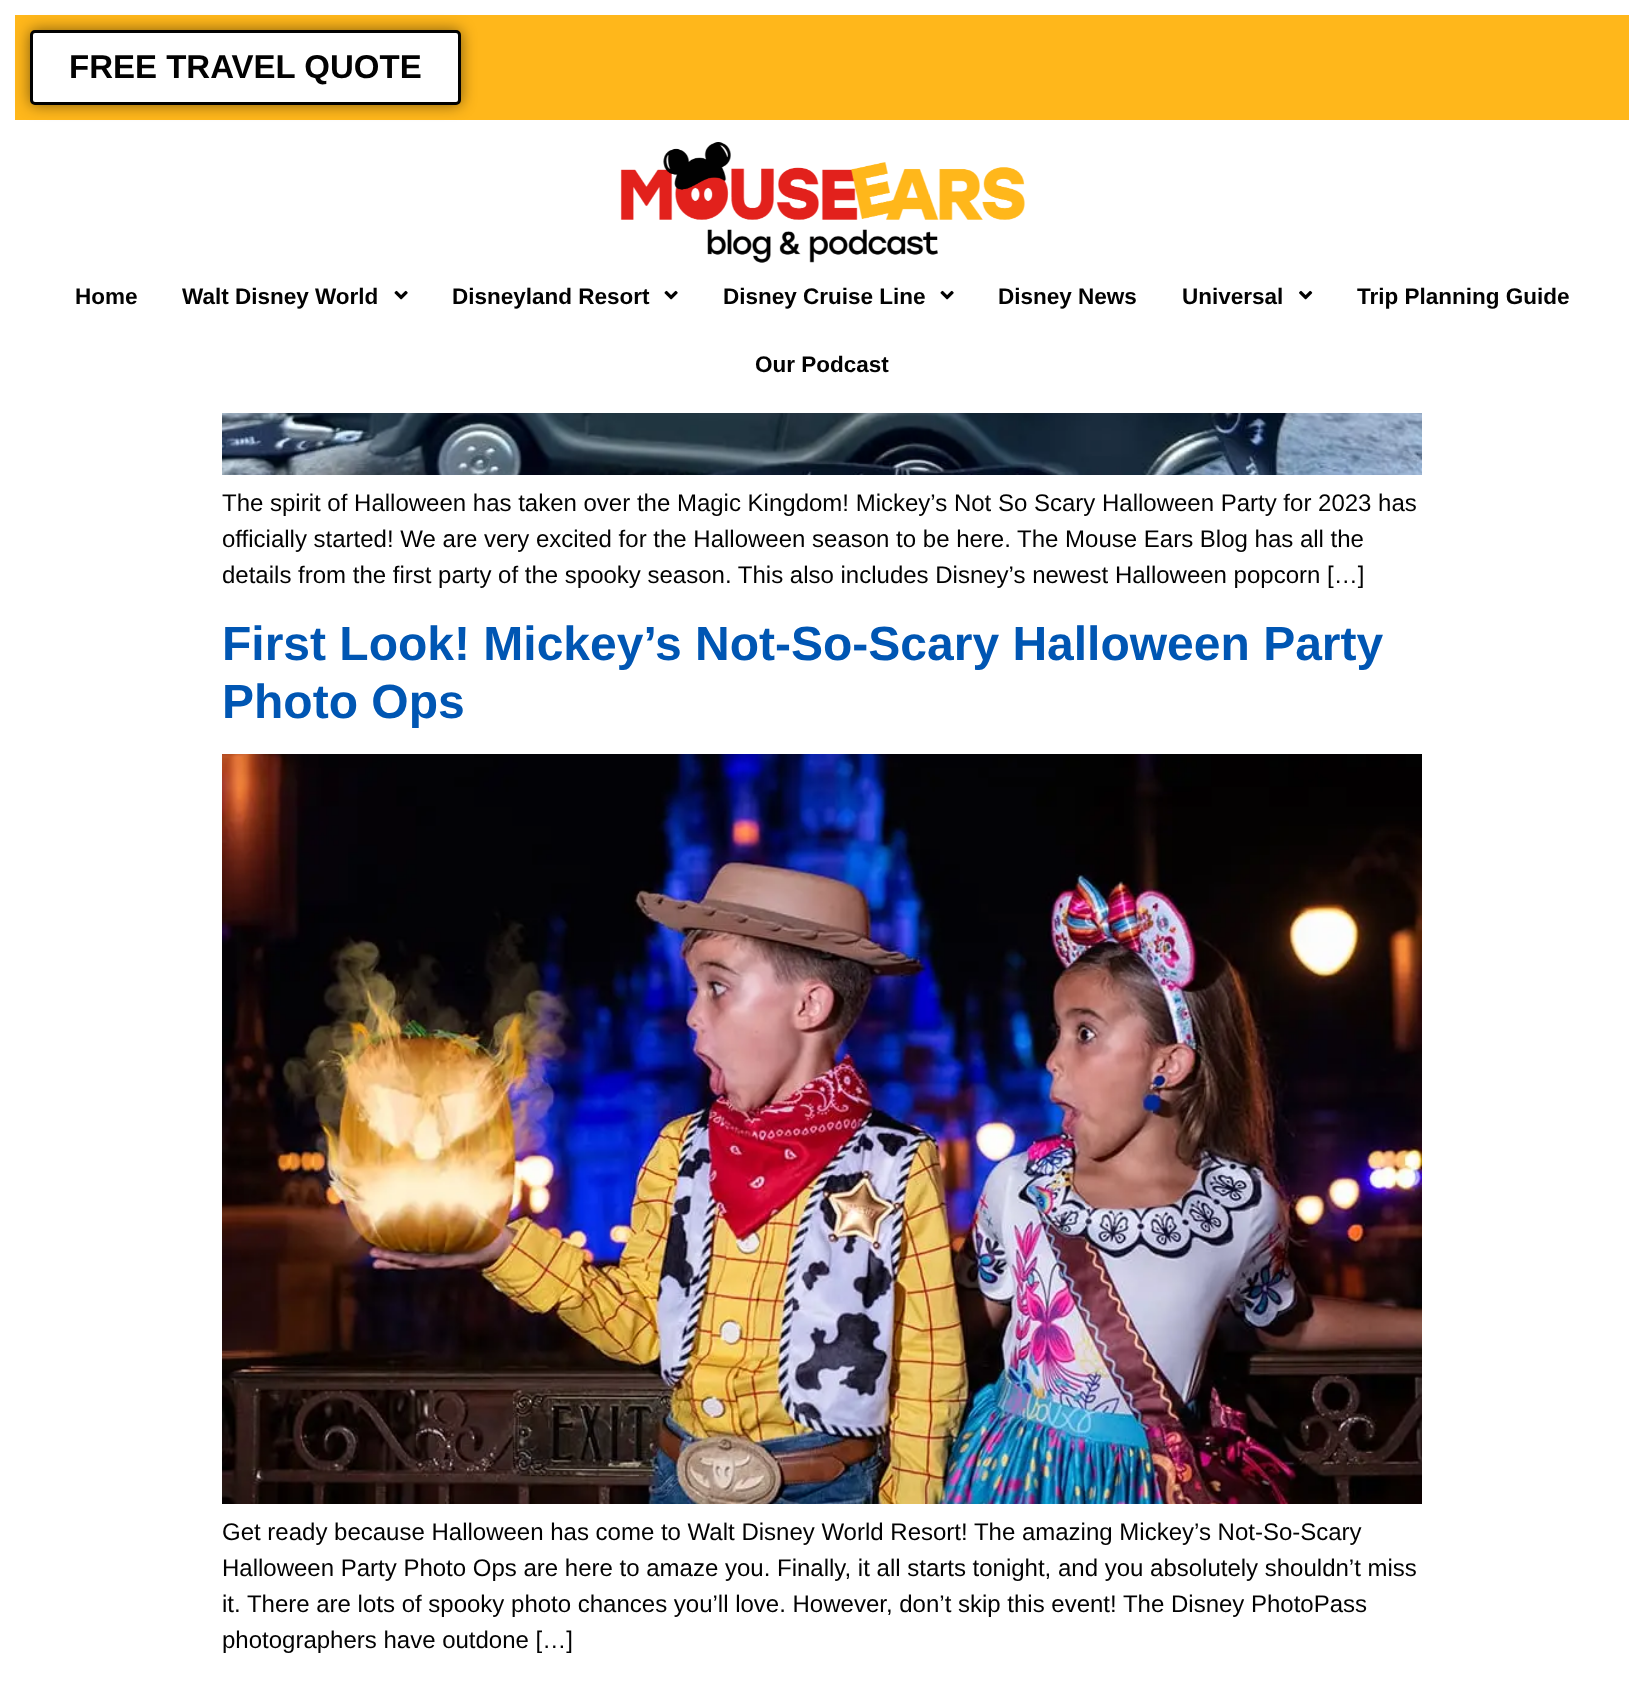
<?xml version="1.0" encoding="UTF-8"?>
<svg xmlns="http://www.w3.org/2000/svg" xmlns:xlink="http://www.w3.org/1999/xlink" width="1644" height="1699">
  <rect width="100%" height="100%" fill="#ffffff" />
  <rect x="15" y="15" width="1614" height="105" fill="#ffb71b" />
  <rect x="30" y="30" width="431" height="75" rx="5" fill="#000000" fill-opacity="0.5" filter="blur(7.5px)" />
  <rect x="31.5" y="31.5" width="428" height="72" rx="3.5" fill="#ffffff" stroke="#020202" stroke-width="3" />
  <image x="620" y="142" width="405" height="121" xlink:href="image1.png" />
  <image x="394" y="290" width="14" height="10" xlink:href="image2.png" />
  <image x="664" y="290" width="14" height="10" xlink:href="image2.png" />
  <image x="940" y="290" width="14" height="10" xlink:href="image2.png" />
  <image x="1299" y="290" width="14" height="10" xlink:href="image3.png" />
  <image x="222" y="413" width="1200" height="62" xlink:href="image4.png" />
  <image x="222" y="754" width="1200" height="750" xlink:href="image5.png" />
  <text x="69" y="78" style="font-family: Liberation Sans; font-size: 33px; font-weight: bold; fill: #020202">FREE TRAVEL QUOTE</text>
  <text x="75" y="304" style="font-family: Liberation Sans; font-size: 22.5px; font-weight: bold; fill: #020202">Home</text>
  <text x="182" y="304" style="font-family: Liberation Sans; font-size: 22.5px; font-weight: bold; fill: #020202">Walt Disney World</text>
  <text x="452" y="304" style="font-family: Liberation Sans; font-size: 22.5px; font-weight: bold; fill: #020202">Disneyland Resort</text>
  <text x="723" y="304" style="font-family: Liberation Sans; font-size: 22.5px; font-weight: bold; fill: #020202">Disney Cruise Line</text>
  <text x="998" y="304" style="font-family: Liberation Sans; font-size: 22.5px; font-weight: bold; fill: #020202">Disney News</text>
  <text x="1182" y="304" style="font-family: Liberation Sans; font-size: 22.5px; font-weight: bold; fill: #020202">Universal</text>
  <text x="1357" y="304" style="font-family: Liberation Sans; font-size: 22.5px; font-weight: bold; fill: #020202">Trip Planning Guide</text>
  <text x="755" y="372" style="font-family: Liberation Sans; font-size: 22.5px; font-weight: bold; fill: #020202">Our Podcast</text>
  <text x="222" y="511" style="font-family: Liberation Sans; font-size: 24px; fill: #020202">The spirit of Halloween has taken over the Magic Kingdom! Mickey’s Not So Scary Halloween Party for 2023 has</text>
  <text x="222" y="547" style="font-family: Liberation Sans; font-size: 24px; fill: #020202">officially started! We are very excited for the Halloween season to be here. The Mouse Ears Blog has all the</text>
  <text x="222" y="583" style="font-family: Liberation Sans; font-size: 24px; fill: #020202">details from the first party of the spooky season. This also includes Disney’s newest Halloween popcorn […]</text>
  <text x="222" y="660" style="font-family: Liberation Sans; font-size: 48px; font-weight: bold; fill: #0056b3">First Look! Mickey’s Not-So-Scary Halloween Party</text>
  <text x="222" y="718" style="font-family: Liberation Sans; font-size: 48px; font-weight: bold; fill: #0056b3">Photo Ops</text>
  <text x="222" y="1540" style="font-family: Liberation Sans; font-size: 24px; fill: #020202">Get ready because Halloween has come to Walt Disney World Resort! The amazing Mickey’s Not-So-Scary</text>
  <text x="222" y="1576" style="font-family: Liberation Sans; font-size: 24px; fill: #020202">Halloween Party Photo Ops are here to amaze you. Finally, it all starts tonight, and you absolutely shouldn’t miss</text>
  <text x="222" y="1612" style="font-family: Liberation Sans; font-size: 24px; fill: #020202">it. There are lots of spooky photo chances you’ll love. However, don’t skip this event! The Disney PhotoPass</text>
  <text x="222" y="1648" style="font-family: Liberation Sans; font-size: 24px; fill: #020202">photographers have outdone […]</text>
</svg>
